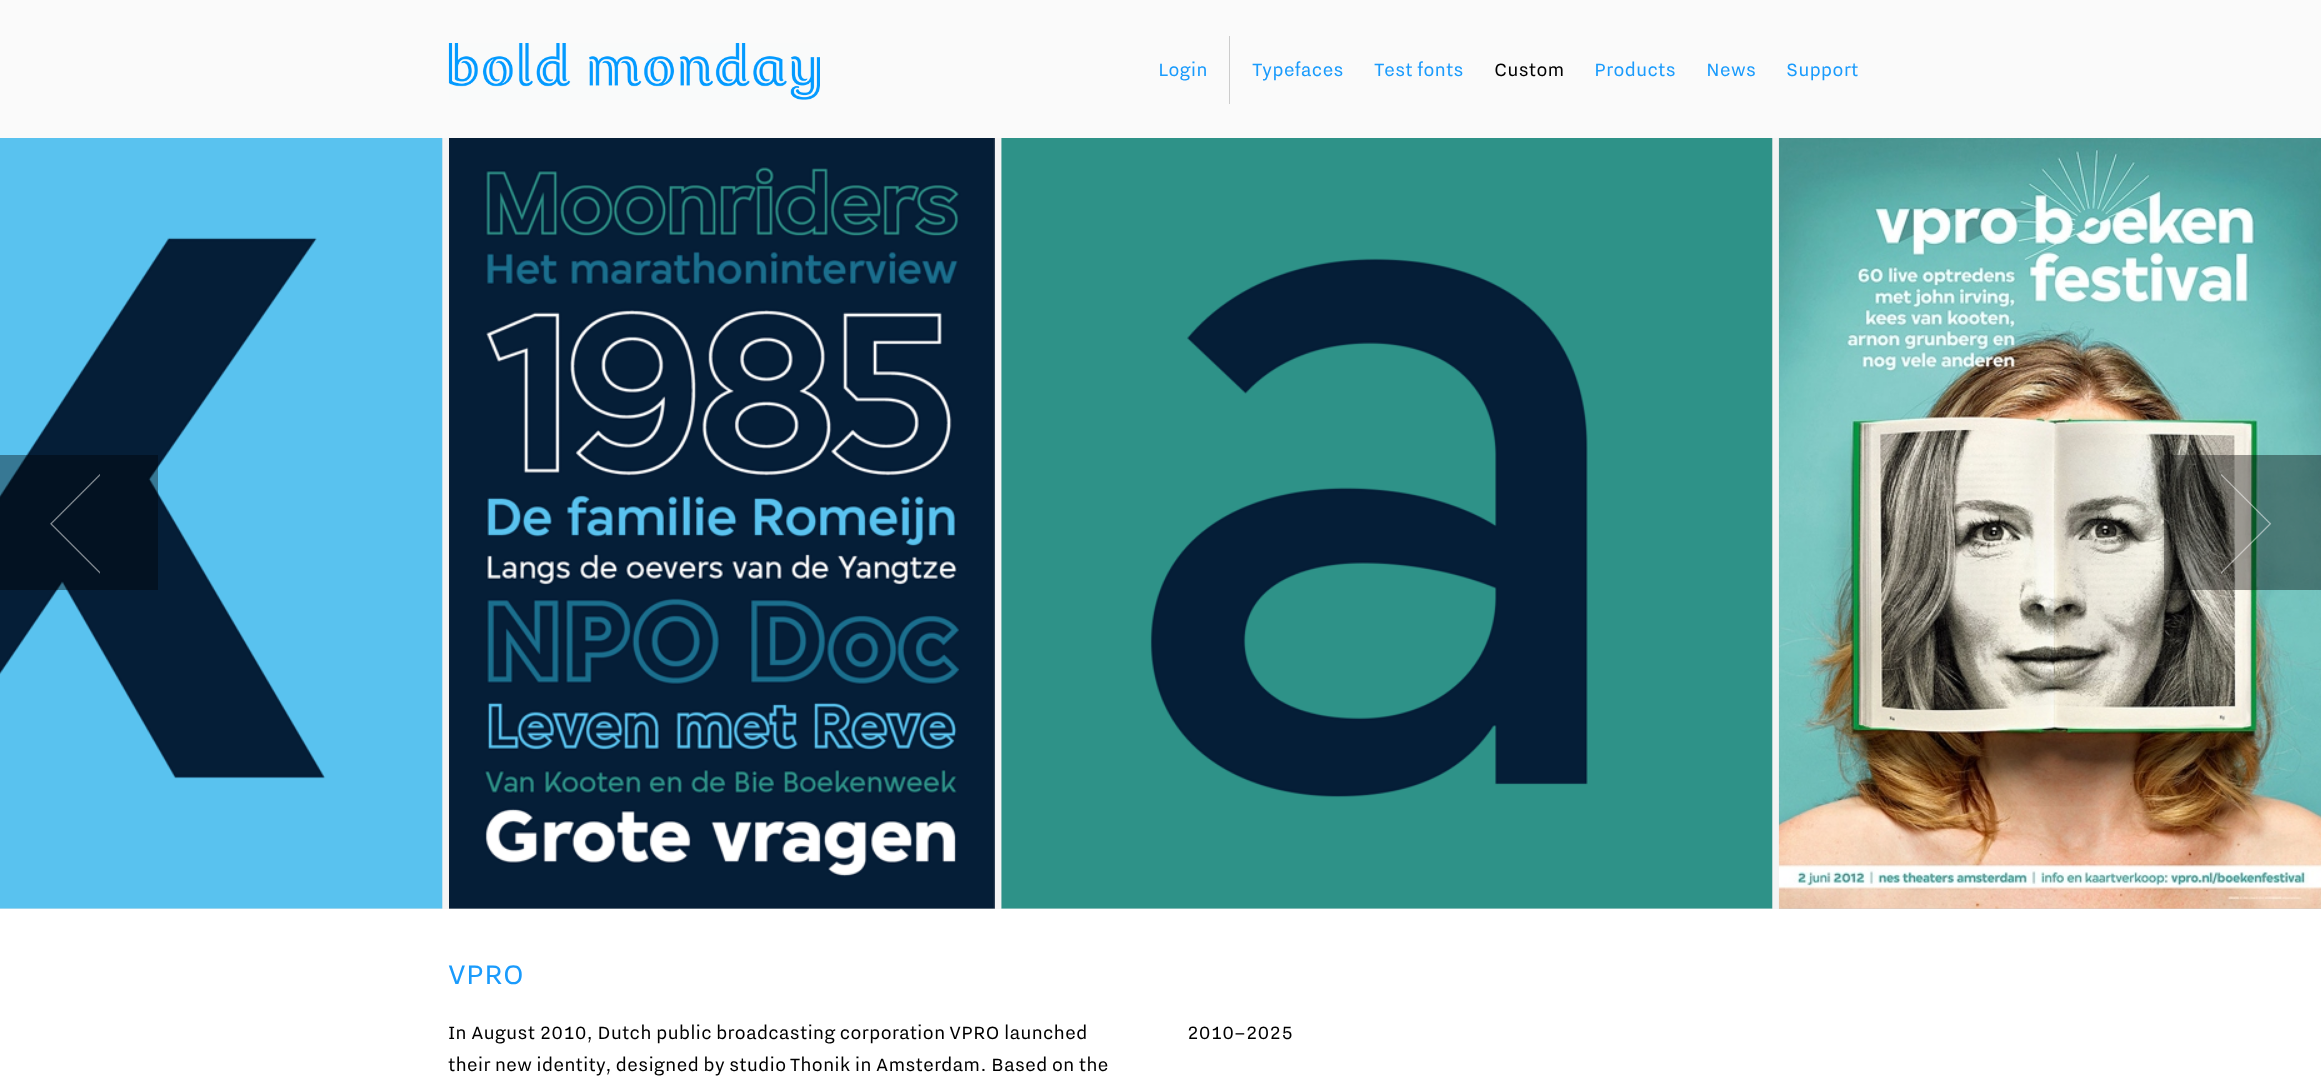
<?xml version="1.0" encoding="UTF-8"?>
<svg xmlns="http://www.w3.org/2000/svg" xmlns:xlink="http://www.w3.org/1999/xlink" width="2321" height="1088">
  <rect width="100%" height="100%" fill="#ffffff" />
  <rect width="2321" height="138" fill="#fafafa" />
  <image x="448" y="43" width="372" height="57" xlink:href="image1.png" />
  <rect x="1229" y="36" width="1" height="68" fill="#cccccc" />
  <rect y="138" width="443" height="771" fill="#eeeeee" />
  <rect x="443" y="138" width="6" height="771" fill="#f4f4f4" />
  <image x="0" y="138" width="443" height="771" xlink:href="image2.png" />
  <rect x="449" y="908" width="546" height="1" fill="#cccccc" />
  <rect x="995" y="138" width="6" height="771" fill="#f4f4f4" />
  <image x="449" y="138" width="546" height="771" xlink:href="image3.png" />
  <rect x="1001" y="138" width="772" height="771" fill="#eeeeee" />
  <rect x="1773" y="138" width="6" height="771" fill="#f4f4f4" />
  <image x="1001" y="138" width="772" height="771" xlink:href="image4.png" />
  <rect x="1779" y="908" width="542" height="1" fill="#cccccc" />
  <image x="1778" y="138" width="543" height="771" xlink:href="image5.png" />
  <rect y="455" width="158" height="135" fill="#000000" fill-opacity="0.38" />
  <image x="50" y="474" width="50" height="100" xlink:href="image6.png" />
  <rect x="2164" y="455" width="157" height="135" fill="#000000" fill-opacity="0.38" />
  <image x="2221" y="474" width="51" height="100" xlink:href="image7.png" />
  <text x="1158" y="76" style="font-family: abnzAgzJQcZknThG; font-size: 22.5px; fill: #1a9bfc">Login</text>
  <text x="1252" y="76" style="font-family: abnzAgzJQcZknThG; font-size: 22.5px; fill: #1a9bfc">Typefaces</text>
  <text x="1374" y="76" style="font-family: abnzAgzJQcZknThG; font-size: 22.5px; fill: #1a9bfc">Test fonts</text>
  <text x="1494" y="76" style="font-family: abnzAgzJQcZknThG; font-size: 22.5px; fill: #000000">Custom</text>
  <text x="1594" y="76" style="font-family: abnzAgzJQcZknThG; font-size: 22.5px; fill: #1a9bfc">Products</text>
  <text x="1706" y="76" style="font-family: abnzAgzJQcZknThG; font-size: 22.5px; fill: #1a9bfc">News</text>
  <text x="1786" y="76" style="font-family: abnzAgzJQcZknThG; font-size: 22.5px; fill: #1a9bfc">Support</text>
  <text x="448" y="984" style="font-family: abnzAgzJQcZknThG; font-size: 34px; fill: #1a9bfc">VPRO</text>
  <text x="448" y="1039" style="font-family: abnzAgzJQcZknThG; font-size: 22.5px; fill: #000000">In August 2010, Dutch public broadcasting corporation VPRO launched</text>
  <text x="448" y="1071" style="font-family: abnzAgzJQcZknThG; font-size: 22.5px; fill: #000000">their new identity, designed by studio Thonik in Amsterdam. Based on the</text>
  <text x="1187" y="1039" style="font-family: abnzAgzJQcZknThG; font-size: 22.5px; fill: #000000">2010–2025</text>
</svg>
